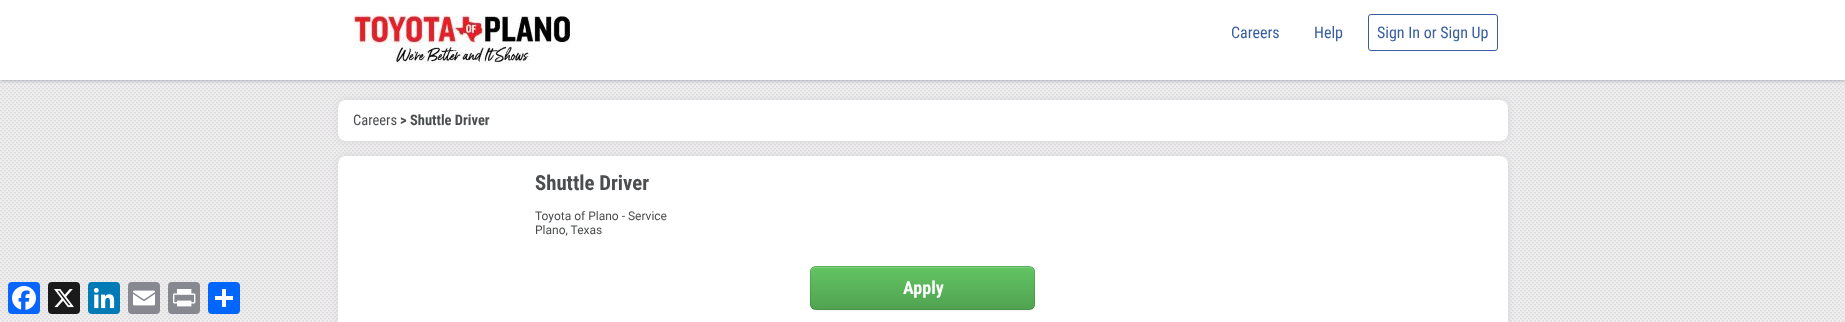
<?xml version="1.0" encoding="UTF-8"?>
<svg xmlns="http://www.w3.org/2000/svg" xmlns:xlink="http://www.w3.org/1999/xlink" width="1845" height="322">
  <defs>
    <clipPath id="clip1"><rect x="810" y="266" width="225" height="44" rx="6" /></clipPath>
    <linearGradient id="g1" gradientUnits="userSpaceOnUse" x1="923" y1="267" x2="923" y2="309"><stop offset="0" stop-color="#62c462" /><stop offset="1" stop-color="#51a351" /></linearGradient>
  </defs>
  <rect width="100%" height="100%" fill="#ffffff" />
  <image x="0" y="80" width="1845" height="242" xlink:href="image1.png" />
  <rect width="1845" height="80" fill="#8c94a2" filter="blur(2px)" />
  <rect width="1845" height="80" fill="#ffffff" />
  <image x="353" y="15" width="217" height="49" xlink:href="image2.png" />
  <rect x="1368.5" y="14.5" width="129" height="36" rx="2.5" fill="none" stroke="#385e9d" />
  <rect x="338" y="100" width="1170" height="41" rx="8" fill="#d5d4d6" filter="blur(3px)" />
  <rect x="338" y="100" width="1170" height="41" rx="8" fill="#ffffff" />
  <rect x="338" y="156" width="1170" height="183" rx="8" fill="#d5d4d6" filter="blur(3px)" />
  <rect x="338" y="156" width="1170" height="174" rx="8" fill="#ffffff" />
  <rect x="8" y="282" width="32" height="32" rx="4" fill="#0866ff" />
  <image x="12" y="286" width="24" height="24" xlink:href="image3.png" />
  <rect x="48" y="282" width="32" height="32" rx="4" fill="#1a1a1a" />
  <image x="54" y="289" width="20" height="19" xlink:href="image4.png" />
  <rect x="88" y="282" width="32" height="32" rx="4" fill="#007bb5" />
  <image x="93" y="287" width="22" height="22" xlink:href="image5.png" />
  <rect x="128" y="282" width="32" height="32" rx="4" fill="#888990" />
  <image x="133" y="290" width="22" height="16" xlink:href="image6.png" />
  <rect x="168" y="282" width="32" height="32" rx="4" fill="#888990" />
  <image x="173" y="289" width="23" height="18" xlink:href="image7.png" />
  <rect x="208" y="282" width="32" height="32" rx="4" fill="#0166ff" />
  <rect x="222" y="289" width="4" height="18" fill="#ffffff" />
  <rect x="215" y="296" width="18" height="4" fill="#ffffff" />
  <rect x="810" y="267" width="225" height="44" rx="6" fill="#000000" fill-opacity="0.05" filter="blur(1px)" />
  <rect x="810" y="266" width="225" height="44" rx="6" fill="#62c462" />
  <g clip-path="url(#clip1)">
    <rect x="810" y="267" width="225" height="42" fill="url(#g1)" />
  </g>
  <path d="M 816 268 h 213 c 3 0 5 2 5 5 v -1 c 0 -3 -2 -5 -5 -5 h -213 c -3 0 -5 2 -5 5 v 1 c 0 -3 2 -5 5 -5 z" fill="#81d081" />
  <path d="M 1033 308 c -1 1 -2.5 1.5 -4 1.5 h -213 c -1.5 0 -3 -0.5 -4 -1.5" fill="none" stroke="#000000" stroke-opacity="0.25" />
  <path d="M 812 308 c -1 -1 -1.5 -2.5 -1.5 -4 v -32 c 0 -1.5 0.5 -3 1.5 -4 c 1 -1 2.5 -1.5 4 -1.5 h 213 c 1.5 0 3 0.5 4 1.5 c 1 1 1.5 2.5 1.5 4 v 32 c 0 1.5 -0.5 3 -1.5 4" fill="none" stroke="#000000" stroke-opacity="0.1" />
  <text x="1231" y="38" style="font-family: Roboto Condensed; font-size: 16px; fill: #385e9d">Careers</text>
  <text x="1314" y="38" style="font-family: Roboto Condensed; font-size: 16px; fill: #385e9d">Help</text>
  <text x="1377" y="38" style="font-family: Roboto Condensed; font-size: 16px; fill: #385e9d">Sign In or Sign Up</text>
  <text x="353" y="125" style="font-family: Roboto Condensed; font-size: 14.5px; fill: #4b4d4f">Careers</text>
  <text x="400" y="125" style="font-family: Roboto Condensed; font-size: 14.5px; font-weight: bold; fill: #4b4d4f">&gt; Shuttle Driver</text>
  <text x="535" y="190" style="font-family: Roboto Condensed; font-size: 20.75px; font-weight: bold; fill: #4b4d4f">Shuttle Driver</text>
  <text x="535" y="220" style="font-family: Roboto; font-size: 12px; fill: #4b4d4f">Toyota of Plano - Service</text>
  <text x="535" y="234" style="font-family: Roboto; font-size: 12px; fill: #4b4d4f">Plano, Texas</text>
  <text x="903" y="294" style="font-family: Roboto Condensed; font-size: 18px; font-weight: bold; fill: #ffffff">Apply</text>
</svg>
